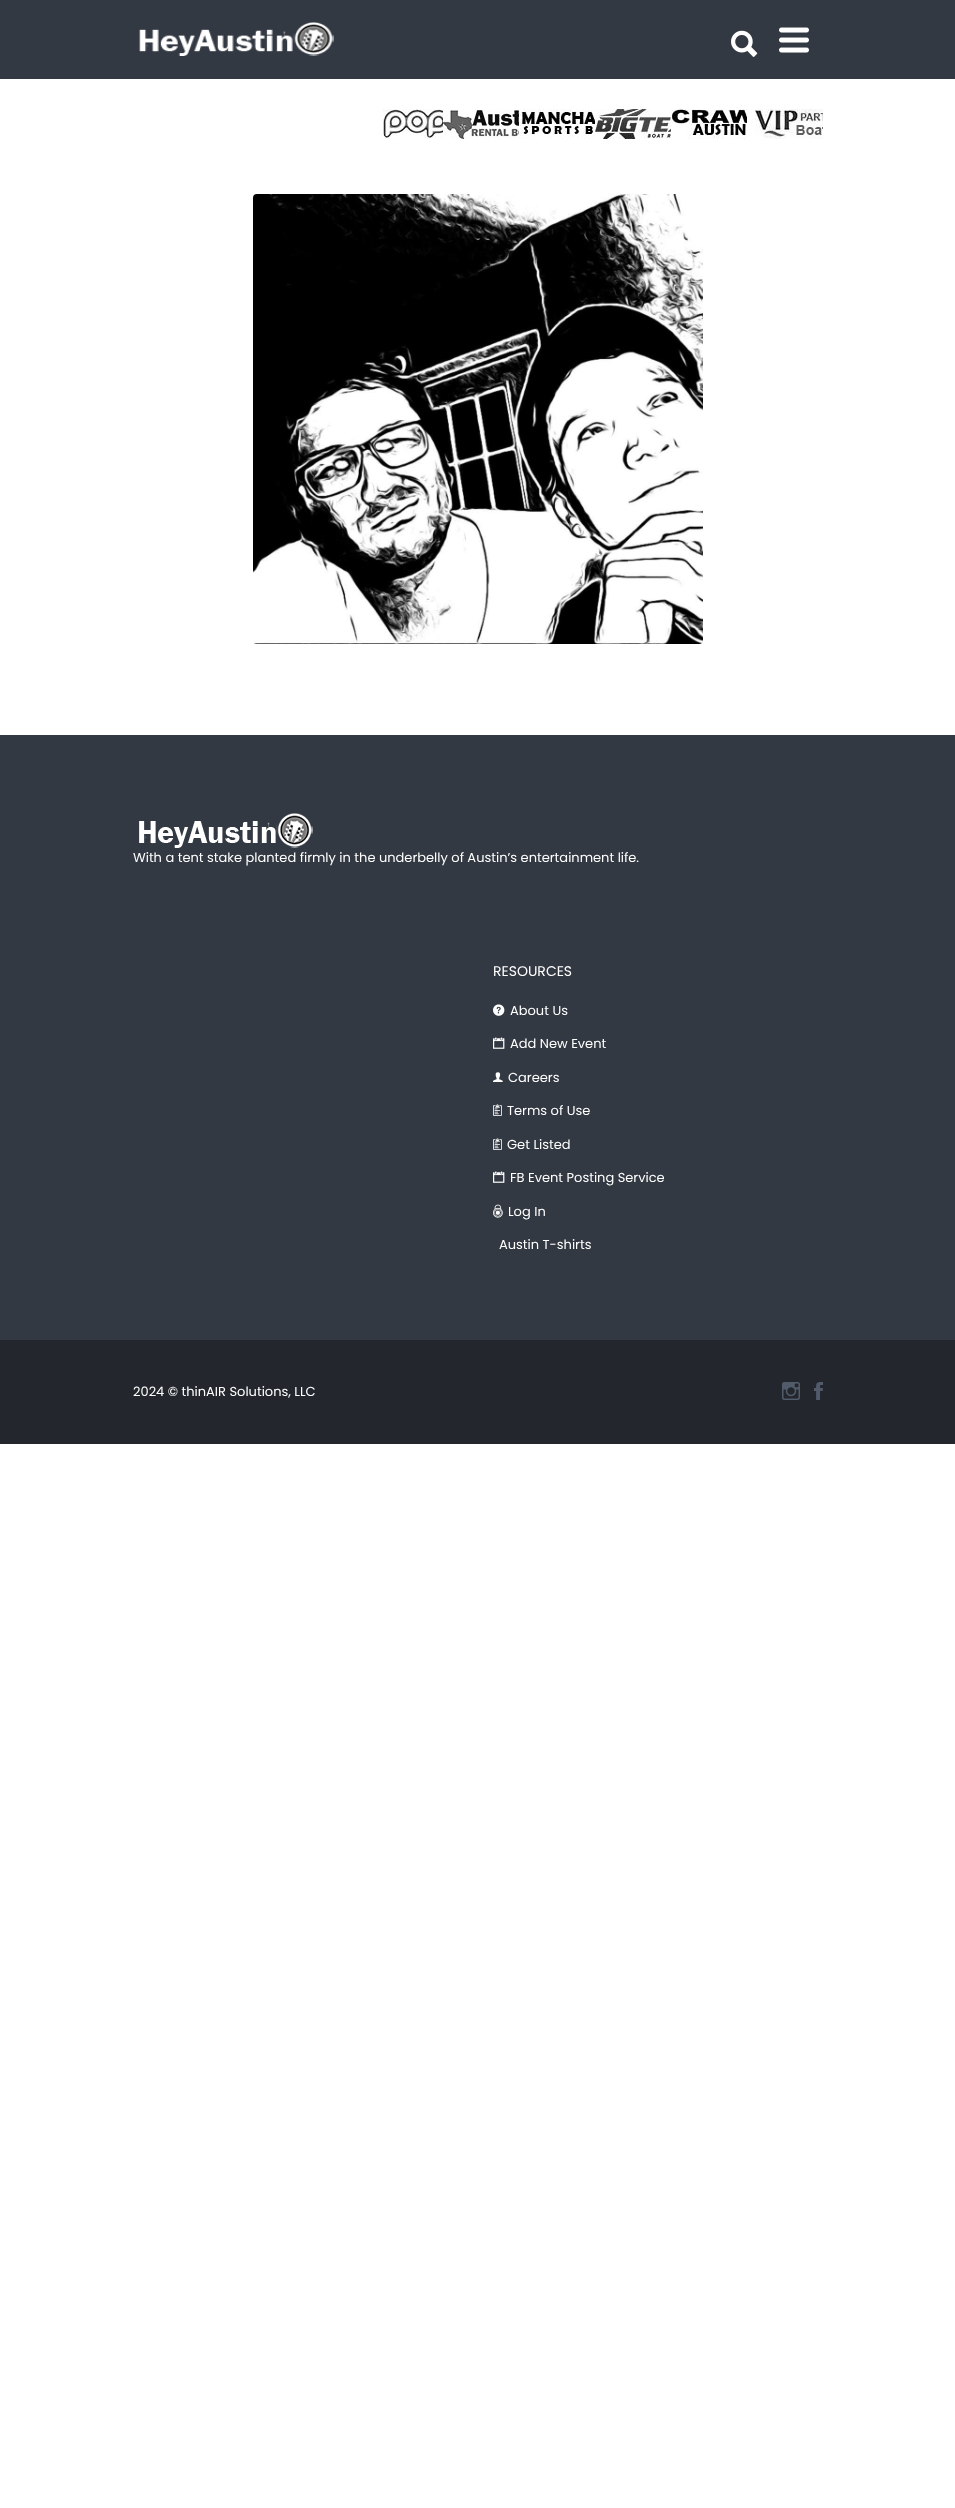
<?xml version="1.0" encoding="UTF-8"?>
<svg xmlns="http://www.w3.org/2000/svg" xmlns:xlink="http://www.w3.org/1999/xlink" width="955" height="2508">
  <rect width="100%" height="100%" fill="#ffffff" />
  <rect width="955" height="79" fill="#333943" />
  <image x="139" y="22" width="195" height="34" xlink:href="image1.png" />
  <image x="731" y="30" width="27" height="27" xlink:href="image2.png" />
  <image x="779" y="27" width="30" height="26" xlink:href="image3.png" />
  <image x="383" y="109" width="60" height="30" xlink:href="image4.png" />
  <image x="443" y="109" width="76" height="30" xlink:href="image5.png" />
  <image x="519" y="109" width="76" height="30" xlink:href="image6.png" />
  <image x="595" y="109" width="76" height="30" xlink:href="image7.png" />
  <image x="671" y="109" width="76" height="30" xlink:href="image8.png" />
  <image x="747" y="109" width="76" height="30" xlink:href="image9.png" />
  <image x="253" y="194" width="450" height="450" xlink:href="image10.png" />
  <rect y="735" width="955" height="605" fill="#333942" />
  <image x="139" y="813" width="174" height="35" xlink:href="image11.png" />
  <image x="493" y="1004" width="12" height="12" xlink:href="image12.png" />
  <image x="493" y="1037" width="12" height="12" xlink:href="image13.png" />
  <image x="493" y="1072" width="10" height="10" xlink:href="image14.png" />
  <image x="493" y="1104" width="9" height="12" xlink:href="image15.png" />
  <image x="493" y="1138" width="9" height="12" xlink:href="image15.png" />
  <image x="493" y="1171" width="12" height="12" xlink:href="image13.png" />
  <image x="493" y="1204" width="10" height="14" xlink:href="image16.png" />
  <rect y="1340" width="955" height="104" fill="#23272d" />
  <image x="782" y="1382" width="18" height="18" xlink:href="image17.png" />
  <image x="814" y="1382" width="9" height="18" xlink:href="image18.png" />
  <text x="133" y="862" style="font-family: Poppins; font-size: 13px; fill: #ffffff">With a tent stake planted firmly in the underbelly of Austin’s entertainment life.</text>
  <text x="493" y="976" style="font-family: Poppins; font-size: 14px; fill: #ffffff">RESOURCES</text>
  <text x="510" y="1015" style="font-family: Poppins; font-size: 13px; fill: #ffffff">About Us</text>
  <text x="510" y="1048" style="font-family: Poppins; font-size: 13px; fill: #ffffff">Add New Event</text>
  <text x="508" y="1082" style="font-family: Poppins; font-size: 13px; fill: #ffffff">Careers</text>
  <text x="507" y="1115" style="font-family: Poppins; font-size: 13px; fill: #ffffff">Terms of Use</text>
  <text x="507" y="1149" style="font-family: Poppins; font-size: 13px; fill: #ffffff">Get Listed</text>
  <text x="510" y="1182" style="font-family: Poppins; font-size: 13px; fill: #ffffff">FB Event Posting Service</text>
  <text x="508" y="1216" style="font-family: Poppins; font-size: 13px; fill: #ffffff">Log In</text>
  <text x="499" y="1249" style="font-family: Poppins; font-size: 13px; fill: #ffffff">Austin T-shirts</text>
  <text x="133" y="1396" style="font-family: Poppins; font-size: 13px; fill: #ffffff">2024 © thinAIR Solutions, LLC</text>
</svg>
